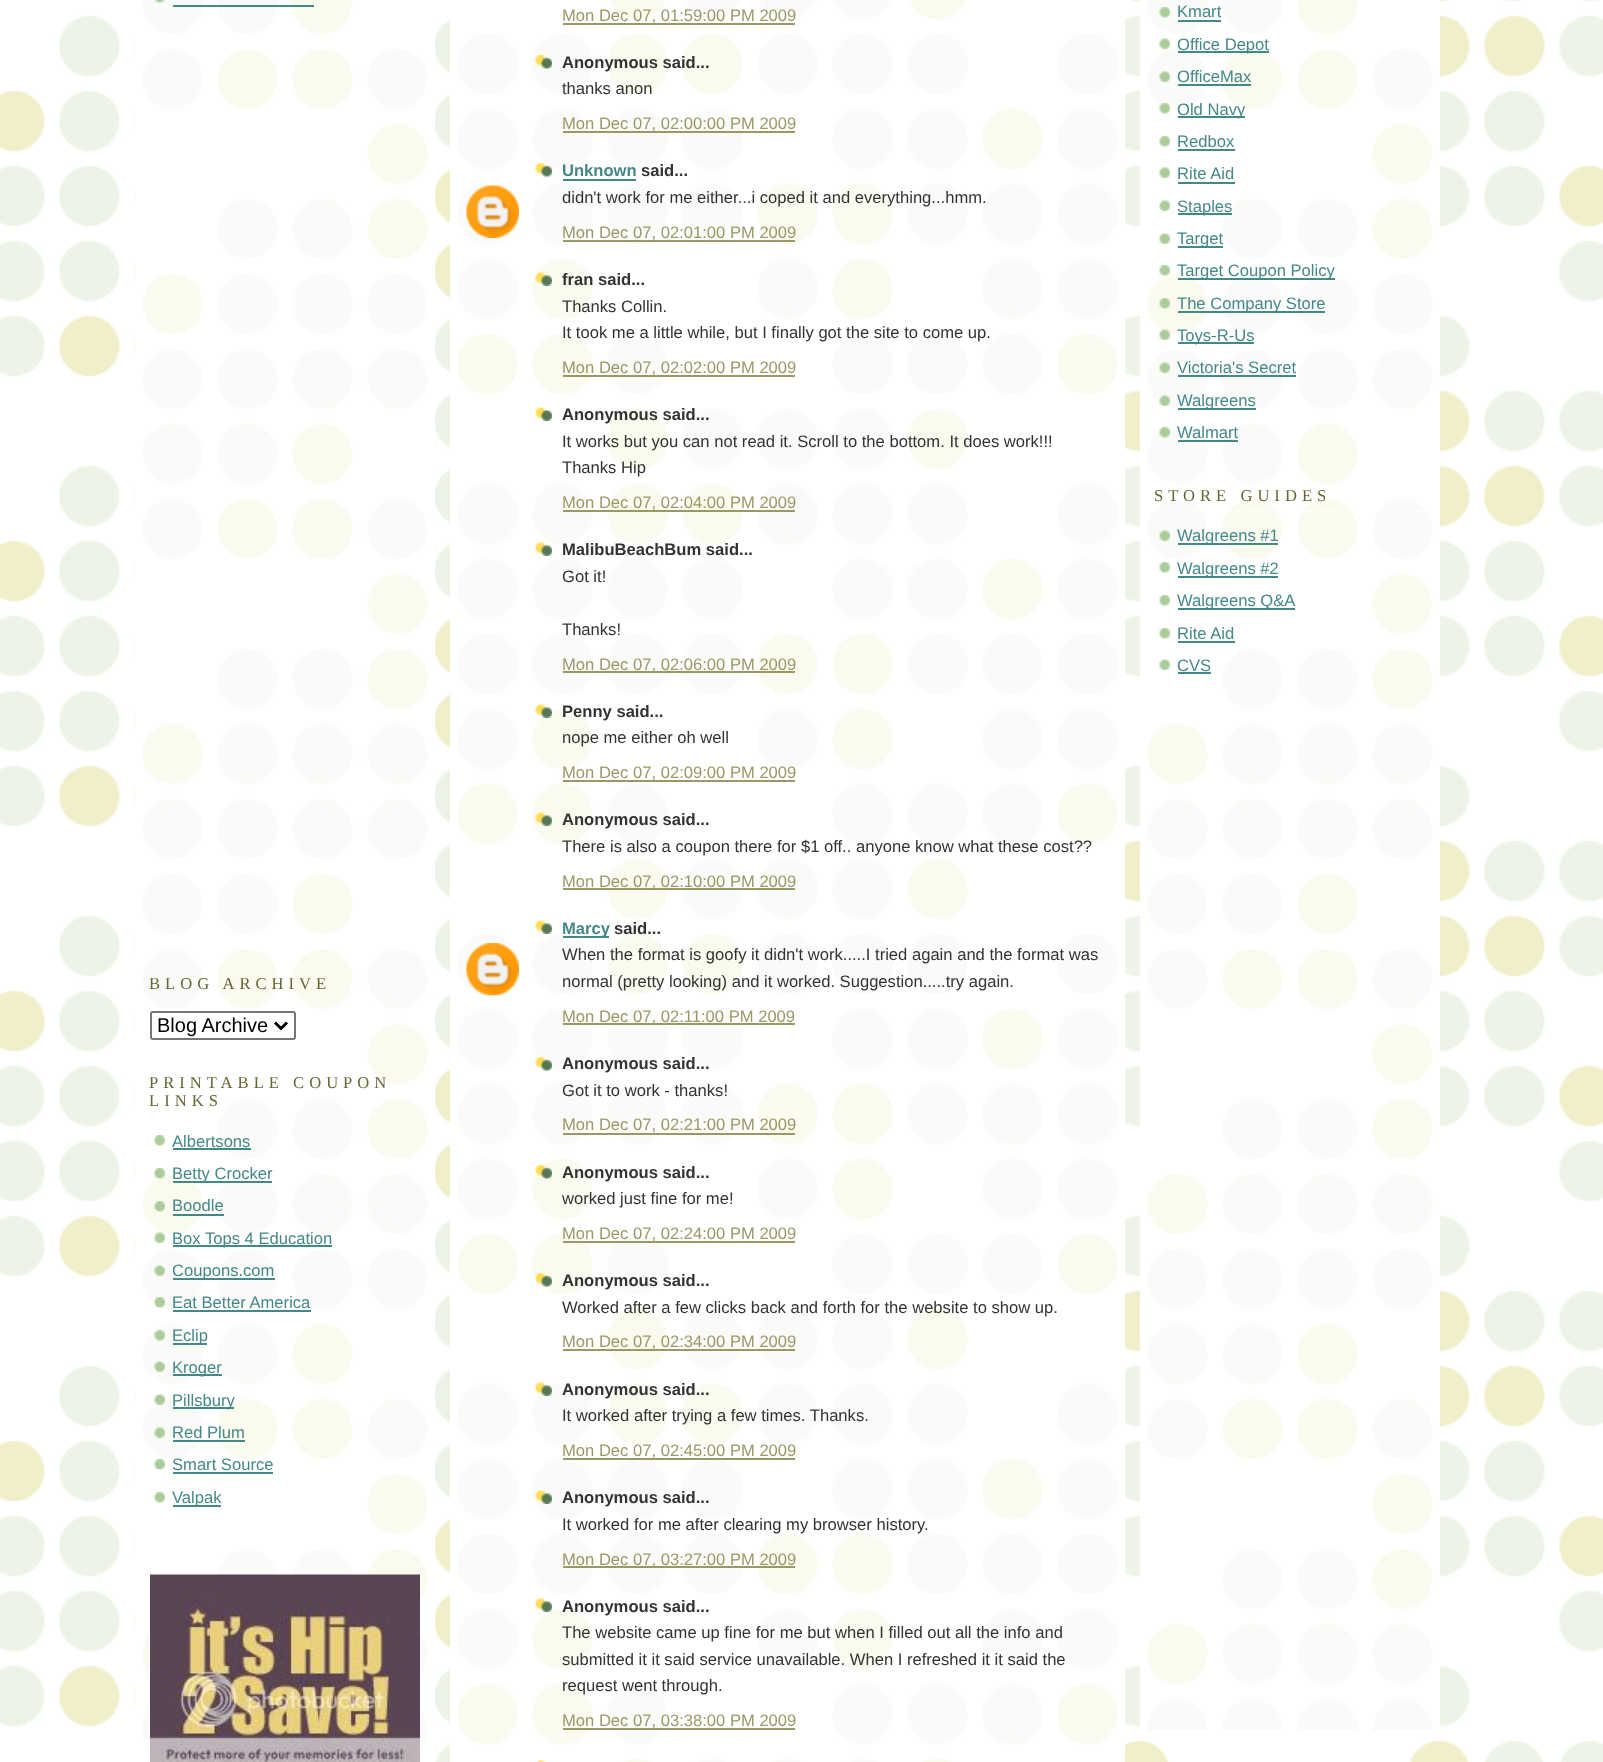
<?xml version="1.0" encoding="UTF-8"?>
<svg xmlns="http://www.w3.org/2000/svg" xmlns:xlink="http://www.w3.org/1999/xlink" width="1603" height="1762">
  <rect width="100%" height="100%" fill="#ffffff" />
  <image x="0" y="0" width="1603" height="1762" xlink:href="image1.png" />
  <image x="135" y="0" width="300" height="1762" xlink:href="image2.png" />
  <image x="154" y="0" width="11" height="3" xlink:href="image3.png" />
  <rect x="173" y="5" width="141" height="2" fill="#448888" />
  <path d="M 150 998 h 270" fill="none" stroke="#ffffff" stroke-width="1.5" stroke-dasharray="1.5 1.5" />
  <rect x="151" y="1012" width="144" height="27" rx="2" fill="none" stroke="#767676" stroke-width="2" />
  <path d="M 275 1022.5 l 6 6 l 6 -6" fill="none" stroke="#000000" stroke-width="3" />
  <path d="M 150 1115 h 270" fill="none" stroke="#ffffff" stroke-width="1.5" stroke-dasharray="1.5 1.5" />
  <image x="154" y="1135" width="11" height="11" xlink:href="image4.png" />
  <rect x="173" y="1148" width="78" height="2" fill="#448888" />
  <image x="154" y="1168" width="11" height="11" xlink:href="image5.png" />
  <rect x="173" y="1181" width="99" height="2" fill="#448888" />
  <image x="154" y="1201" width="11" height="11" xlink:href="image6.png" />
  <rect x="173" y="1214" width="51" height="2" fill="#448888" />
  <image x="154" y="1232" width="11" height="11" xlink:href="image7.png" />
  <rect x="173" y="1245" width="159" height="2" fill="#448888" />
  <image x="154" y="1265" width="11" height="11" xlink:href="image8.png" />
  <rect x="173" y="1278" width="102" height="2" fill="#448888" />
  <image x="154" y="1297" width="11" height="11" xlink:href="image9.png" />
  <rect x="173" y="1310" width="138" height="2" fill="#448888" />
  <image x="154" y="1330" width="11" height="11" xlink:href="image10.png" />
  <rect x="173" y="1343" width="34" height="2" fill="#448888" />
  <image x="154" y="1361" width="11" height="11" xlink:href="image8.png" />
  <rect x="173" y="1374" width="49" height="2" fill="#448888" />
  <image x="154" y="1394" width="11" height="11" xlink:href="image11.png" />
  <rect x="173" y="1407" width="61" height="2" fill="#448888" />
  <image x="154" y="1427" width="11" height="11" xlink:href="image8.png" />
  <rect x="173" y="1440" width="72" height="2" fill="#448888" />
  <image x="154" y="1459" width="11" height="11" xlink:href="image12.png" />
  <rect x="173" y="1472" width="100" height="2" fill="#448888" />
  <image x="154" y="1492" width="11" height="11" xlink:href="image4.png" />
  <rect x="173" y="1505" width="48" height="2" fill="#448888" />
  <image x="150" y="1574" width="270" height="188" xlink:href="image13.png" />
  <image x="450" y="0" width="675" height="1762" xlink:href="image14.png" />
  <rect x="563" y="23" width="232" height="2" fill="#999966" />
  <image x="535" y="55" width="17" height="14" xlink:href="image15.png" />
  <rect x="563" y="131" width="232" height="2" fill="#999966" />
  <image x="535" y="163" width="17" height="14" xlink:href="image16.png" />
  <rect x="563" y="179" width="73" height="2" fill="#448888" />
  <image x="466" y="185" width="53" height="53" xlink:href="image17.png" />
  <rect x="563" y="240" width="232" height="2" fill="#999966" />
  <image x="535" y="272" width="17" height="14" xlink:href="image18.png" />
  <rect x="563" y="375" width="232" height="2" fill="#999966" />
  <image x="535" y="407" width="17" height="14" xlink:href="image19.png" />
  <rect x="563" y="510" width="232" height="2" fill="#999966" />
  <image x="535" y="542" width="17" height="14" xlink:href="image20.png" />
  <rect x="563" y="671" width="232" height="2" fill="#999966" />
  <image x="535" y="704" width="17" height="14" xlink:href="image21.png" />
  <rect x="563" y="780" width="232" height="2" fill="#999966" />
  <image x="535" y="812" width="17" height="14" xlink:href="image22.png" />
  <rect x="563" y="888" width="232" height="2" fill="#999966" />
  <image x="535" y="920" width="17" height="14" xlink:href="image19.png" />
  <rect x="563" y="936" width="46" height="2" fill="#448888" />
  <image x="466" y="943" width="53" height="53" xlink:href="image23.png" />
  <rect x="563" y="1023" width="232" height="2" fill="#999966" />
  <image x="535" y="1057" width="17" height="14" xlink:href="image24.png" />
  <rect x="563" y="1133" width="232" height="2" fill="#999966" />
  <image x="535" y="1165" width="17" height="14" xlink:href="image25.png" />
  <rect x="563" y="1241" width="232" height="2" fill="#999966" />
  <image x="535" y="1273" width="17" height="14" xlink:href="image26.png" />
  <rect x="563" y="1349" width="232" height="2" fill="#999966" />
  <image x="535" y="1382" width="17" height="14" xlink:href="image27.png" />
  <rect x="563" y="1458" width="232" height="2" fill="#999966" />
  <image x="535" y="1490" width="17" height="14" xlink:href="image28.png" />
  <rect x="563" y="1566" width="232" height="2" fill="#999966" />
  <image x="535" y="1598" width="17" height="14" xlink:href="image29.png" />
  <rect x="563" y="1728" width="232" height="2" fill="#999966" />
  <image x="536" y="1760" width="10" height="2" xlink:href="image30.png" />
  <image x="1140" y="0" width="300" height="1731" xlink:href="image31.png" />
  <image x="1159" y="7" width="11" height="11" xlink:href="image32.png" />
  <rect x="1178" y="20" width="43" height="2" fill="#448888" />
  <image x="1159" y="38" width="11" height="11" xlink:href="image33.png" />
  <rect x="1178" y="51" width="91" height="2" fill="#448888" />
  <image x="1159" y="71" width="11" height="11" xlink:href="image34.png" />
  <rect x="1178" y="84" width="73" height="2" fill="#448888" />
  <image x="1159" y="103" width="11" height="11" xlink:href="image35.png" />
  <rect x="1178" y="116" width="67" height="2" fill="#448888" />
  <image x="1159" y="136" width="11" height="11" xlink:href="image36.png" />
  <rect x="1178" y="149" width="57" height="2" fill="#448888" />
  <image x="1159" y="167" width="11" height="11" xlink:href="image37.png" />
  <rect x="1178" y="182" width="57" height="2" fill="#448888" />
  <image x="1159" y="200" width="11" height="11" xlink:href="image37.png" />
  <rect x="1178" y="213" width="54" height="2" fill="#448888" />
  <image x="1159" y="233" width="11" height="11" xlink:href="image37.png" />
  <rect x="1178" y="246" width="45" height="2" fill="#448888" />
  <image x="1159" y="265" width="11" height="11" xlink:href="image38.png" />
  <rect x="1178" y="278" width="157" height="2" fill="#448888" />
  <image x="1159" y="298" width="11" height="11" xlink:href="image39.png" />
  <rect x="1178" y="311" width="147" height="2" fill="#448888" />
  <image x="1159" y="329" width="11" height="11" xlink:href="image40.png" />
  <rect x="1178" y="342" width="76" height="2" fill="#448888" />
  <image x="1159" y="362" width="11" height="11" xlink:href="image34.png" />
  <rect x="1178" y="375" width="118" height="2" fill="#448888" />
  <image x="1159" y="395" width="11" height="11" xlink:href="image41.png" />
  <rect x="1178" y="408" width="78" height="2" fill="#448888" />
  <image x="1159" y="427" width="11" height="11" xlink:href="image42.png" />
  <rect x="1178" y="440" width="60" height="2" fill="#448888" />
  <path d="M 1155 511 h 270" fill="none" stroke="#ffffff" stroke-width="1.5" stroke-dasharray="1.5 1.5" />
  <image x="1159" y="530" width="11" height="11" xlink:href="image34.png" />
  <rect x="1178" y="543" width="100" height="2" fill="#448888" />
  <image x="1159" y="562" width="11" height="11" xlink:href="image36.png" />
  <rect x="1178" y="576" width="100" height="2" fill="#448888" />
  <image x="1159" y="595" width="11" height="11" xlink:href="image36.png" />
  <rect x="1178" y="608" width="117" height="2" fill="#448888" />
  <image x="1159" y="628" width="11" height="11" xlink:href="image36.png" />
  <rect x="1178" y="641" width="57" height="2" fill="#448888" />
  <image x="1159" y="659" width="11" height="11" xlink:href="image37.png" />
  <rect x="1178" y="672" width="33" height="2" fill="#448888" />
  <text x="149" y="989" style="font-family: Liberation Serif; font-size: 16.6px; letter-spacing: 5px; fill: #666633">BLOG ARCHIVE</text>
  <text x="157" y="1032" style="font-family: Liberation Sans; font-size: 20px; fill: #000000">Blog Archive</text>
  <text x="149" y="1088" style="font-family: Liberation Serif; font-size: 16.6px; letter-spacing: 5px; fill: #666633">PRINTABLE COUPON</text>
  <text x="149" y="1106" style="font-family: Liberation Serif; font-size: 16.6px; letter-spacing: 5px; fill: #666633">LINKS</text>
  <text x="172" y="1147" style="font-family: Liberation Sans; font-size: 16.6px; fill: #448888">Albertsons</text>
  <text x="172" y="1179" style="font-family: Liberation Sans; font-size: 16.6px; fill: #448888">Betty Crocker</text>
  <text x="172" y="1211" style="font-family: Liberation Sans; font-size: 16.6px; fill: #448888">Boodle</text>
  <text x="172" y="1244" style="font-family: Liberation Sans; font-size: 16.6px; fill: #448888">Box Tops 4 Education</text>
  <text x="172" y="1276" style="font-family: Liberation Sans; font-size: 16.6px; fill: #448888">Coupons.com</text>
  <text x="172" y="1308" style="font-family: Liberation Sans; font-size: 16.6px; fill: #448888">Eat Better America</text>
  <text x="172" y="1341" style="font-family: Liberation Sans; font-size: 16.6px; fill: #448888">Eclip</text>
  <text x="172" y="1373" style="font-family: Liberation Sans; font-size: 16.6px; fill: #448888">Kroger</text>
  <text x="172" y="1406" style="font-family: Liberation Sans; font-size: 16.6px; fill: #448888">Pillsbury</text>
  <text x="172" y="1438" style="font-family: Liberation Sans; font-size: 16.6px; fill: #448888">Red Plum</text>
  <text x="172" y="1470" style="font-family: Liberation Sans; font-size: 16.6px; fill: #448888">Smart Source</text>
  <text x="172" y="1503" style="font-family: Liberation Sans; font-size: 16.6px; fill: #448888">Valpak</text>
  <text x="562" y="21" style="font-family: Liberation Sans; font-size: 16.6px; fill: #999966">Mon Dec 07, 01:59:00 PM 2009</text>
  <text x="562" y="68" style="font-family: Liberation Sans; font-size: 16.6px; font-weight: bold; fill: #333333">Anonymous said...</text>
  <text x="562" y="94" style="font-family: Liberation Sans; font-size: 16.6px; fill: #333333">thanks anon</text>
  <text x="562" y="129" style="font-family: Liberation Sans; font-size: 16.6px; fill: #999966">Mon Dec 07, 02:00:00 PM 2009</text>
  <text x="562" y="176" style="font-family: Liberation Sans; font-size: 16.6px; font-weight: bold; fill: #448888">Unknown</text>
  <text x="641" y="176" style="font-family: Liberation Sans; font-size: 16.6px; font-weight: bold; fill: #333333">said...</text>
  <text x="562" y="203" style="font-family: Liberation Sans; font-size: 16.6px; fill: #333333">didn't work for me either...i coped it and everything...hmm.</text>
  <text x="562" y="238" style="font-family: Liberation Sans; font-size: 16.6px; fill: #999966">Mon Dec 07, 02:01:00 PM 2009</text>
  <text x="562" y="285" style="font-family: Liberation Sans; font-size: 16.6px; font-weight: bold; fill: #333333">fran said...</text>
  <text x="562" y="312" style="font-family: Liberation Sans; font-size: 16.6px; fill: #333333">Thanks Collin.</text>
  <text x="562" y="338" style="font-family: Liberation Sans; font-size: 16.6px; fill: #333333">It took me a little while, but I finally got the site to come up.</text>
  <text x="562" y="373" style="font-family: Liberation Sans; font-size: 16.6px; fill: #999966">Mon Dec 07, 02:02:00 PM 2009</text>
  <text x="562" y="420" style="font-family: Liberation Sans; font-size: 16.6px; font-weight: bold; fill: #333333">Anonymous said...</text>
  <text x="562" y="447" style="font-family: Liberation Sans; font-size: 16.6px; fill: #333333">It works but you can not read it. Scroll to the bottom. It does work!!!</text>
  <text x="562" y="473" style="font-family: Liberation Sans; font-size: 16.6px; fill: #333333">Thanks Hip</text>
  <text x="562" y="508" style="font-family: Liberation Sans; font-size: 16.6px; fill: #999966">Mon Dec 07, 02:04:00 PM 2009</text>
  <text x="562" y="555" style="font-family: Liberation Sans; font-size: 16.6px; font-weight: bold; fill: #333333">MalibuBeachBum said...</text>
  <text x="562" y="582" style="font-family: Liberation Sans; font-size: 16.6px; fill: #333333">Got it!</text>
  <text x="562" y="635" style="font-family: Liberation Sans; font-size: 16.6px; fill: #333333">Thanks!</text>
  <text x="562" y="670" style="font-family: Liberation Sans; font-size: 16.6px; fill: #999966">Mon Dec 07, 02:06:00 PM 2009</text>
  <text x="562" y="717" style="font-family: Liberation Sans; font-size: 16.6px; font-weight: bold; fill: #333333">Penny said...</text>
  <text x="562" y="743" style="font-family: Liberation Sans; font-size: 16.6px; fill: #333333">nope me either oh well</text>
  <text x="562" y="778" style="font-family: Liberation Sans; font-size: 16.6px; fill: #999966">Mon Dec 07, 02:09:00 PM 2009</text>
  <text x="562" y="825" style="font-family: Liberation Sans; font-size: 16.6px; font-weight: bold; fill: #333333">Anonymous said...</text>
  <text x="562" y="852" style="font-family: Liberation Sans; font-size: 16.6px; fill: #333333">There is also a coupon there for $1 off.. anyone know what these cost??</text>
  <text x="562" y="887" style="font-family: Liberation Sans; font-size: 16.6px; fill: #999966">Mon Dec 07, 02:10:00 PM 2009</text>
  <text x="562" y="934" style="font-family: Liberation Sans; font-size: 16.6px; font-weight: bold; fill: #448888">Marcy</text>
  <text x="614" y="934" style="font-family: Liberation Sans; font-size: 16.6px; font-weight: bold; fill: #333333">said...</text>
  <text x="562" y="960" style="font-family: Liberation Sans; font-size: 16.6px; fill: #333333">When the format is goofy it didn't work.....I tried again and the format was</text>
  <text x="562" y="987" style="font-family: Liberation Sans; font-size: 16.6px; fill: #333333">normal (pretty looking) and it worked. Suggestion.....try again.</text>
  <text x="562" y="1022" style="font-family: Liberation Sans; font-size: 16.6px; fill: #999966">Mon Dec 07, 02:11:00 PM 2009</text>
  <text x="562" y="1069" style="font-family: Liberation Sans; font-size: 16.6px; font-weight: bold; fill: #333333">Anonymous said...</text>
  <text x="562" y="1096" style="font-family: Liberation Sans; font-size: 16.6px; fill: #333333">Got it to work - thanks!</text>
  <text x="562" y="1130" style="font-family: Liberation Sans; font-size: 16.6px; fill: #999966">Mon Dec 07, 02:21:00 PM 2009</text>
  <text x="562" y="1178" style="font-family: Liberation Sans; font-size: 16.6px; font-weight: bold; fill: #333333">Anonymous said...</text>
  <text x="562" y="1204" style="font-family: Liberation Sans; font-size: 16.6px; fill: #333333">worked just fine for me!</text>
  <text x="562" y="1239" style="font-family: Liberation Sans; font-size: 16.6px; fill: #999966">Mon Dec 07, 02:24:00 PM 2009</text>
  <text x="562" y="1286" style="font-family: Liberation Sans; font-size: 16.6px; font-weight: bold; fill: #333333">Anonymous said...</text>
  <text x="562" y="1313" style="font-family: Liberation Sans; font-size: 16.6px; fill: #333333">Worked after a few clicks back and forth for the website to show up.</text>
  <text x="562" y="1347" style="font-family: Liberation Sans; font-size: 16.6px; fill: #999966">Mon Dec 07, 02:34:00 PM 2009</text>
  <text x="562" y="1395" style="font-family: Liberation Sans; font-size: 16.6px; font-weight: bold; fill: #333333">Anonymous said...</text>
  <text x="562" y="1421" style="font-family: Liberation Sans; font-size: 16.6px; fill: #333333">It worked after trying a few times. Thanks.</text>
  <text x="562" y="1456" style="font-family: Liberation Sans; font-size: 16.6px; fill: #999966">Mon Dec 07, 02:45:00 PM 2009</text>
  <text x="562" y="1503" style="font-family: Liberation Sans; font-size: 16.6px; font-weight: bold; fill: #333333">Anonymous said...</text>
  <text x="562" y="1530" style="font-family: Liberation Sans; font-size: 16.6px; fill: #333333">It worked for me after clearing my browser history.</text>
  <text x="562" y="1565" style="font-family: Liberation Sans; font-size: 16.6px; fill: #999966">Mon Dec 07, 03:27:00 PM 2009</text>
  <text x="562" y="1612" style="font-family: Liberation Sans; font-size: 16.6px; font-weight: bold; fill: #333333">Anonymous said...</text>
  <text x="562" y="1638" style="font-family: Liberation Sans; font-size: 16.6px; fill: #333333">The website came up fine for me but when I filled out all the info and</text>
  <text x="562" y="1665" style="font-family: Liberation Sans; font-size: 16.6px; fill: #333333">submitted it it said service unavailable. When I refreshed it it said the</text>
  <text x="562" y="1691" style="font-family: Liberation Sans; font-size: 16.6px; fill: #333333">request went through.</text>
  <text x="562" y="1726" style="font-family: Liberation Sans; font-size: 16.6px; fill: #999966">Mon Dec 07, 03:38:00 PM 2009</text>
  <text x="1177" y="17" style="font-family: Liberation Sans; font-size: 16.6px; fill: #448888">Kmart</text>
  <text x="1177" y="50" style="font-family: Liberation Sans; font-size: 16.6px; fill: #448888">Office Depot</text>
  <text x="1177" y="82" style="font-family: Liberation Sans; font-size: 16.6px; fill: #448888">OfficeMax</text>
  <text x="1177" y="115" style="font-family: Liberation Sans; font-size: 16.6px; fill: #448888">Old Navy</text>
  <text x="1177" y="147" style="font-family: Liberation Sans; font-size: 16.6px; fill: #448888">Redbox</text>
  <text x="1177" y="179" style="font-family: Liberation Sans; font-size: 16.6px; fill: #448888">Rite Aid</text>
  <text x="1177" y="212" style="font-family: Liberation Sans; font-size: 16.6px; fill: #448888">Staples</text>
  <text x="1177" y="244" style="font-family: Liberation Sans; font-size: 16.6px; fill: #448888">Target</text>
  <text x="1177" y="276" style="font-family: Liberation Sans; font-size: 16.6px; fill: #448888">Target Coupon Policy</text>
  <text x="1177" y="309" style="font-family: Liberation Sans; font-size: 16.6px; fill: #448888">The Company Store</text>
  <text x="1177" y="341" style="font-family: Liberation Sans; font-size: 16.6px; fill: #448888">Toys-R-Us</text>
  <text x="1177" y="373" style="font-family: Liberation Sans; font-size: 16.6px; fill: #448888">Victoria's Secret</text>
  <text x="1177" y="406" style="font-family: Liberation Sans; font-size: 16.6px; fill: #448888">Walgreens</text>
  <text x="1177" y="438" style="font-family: Liberation Sans; font-size: 16.6px; fill: #448888">Walmart</text>
  <text x="1154" y="501" style="font-family: Liberation Serif; font-size: 16.6px; letter-spacing: 5px; fill: #666633">STORE GUIDES</text>
  <text x="1177" y="541" style="font-family: Liberation Sans; font-size: 16.6px; fill: #448888">Walgreens #1</text>
  <text x="1177" y="574" style="font-family: Liberation Sans; font-size: 16.6px; fill: #448888">Walgreens #2</text>
  <text x="1177" y="606" style="font-family: Liberation Sans; font-size: 16.6px; fill: #448888">Walgreens Q&amp;A</text>
  <text x="1177" y="639" style="font-family: Liberation Sans; font-size: 16.6px; fill: #448888">Rite Aid</text>
  <text x="1177" y="671" style="font-family: Liberation Sans; font-size: 16.6px; fill: #448888">CVS</text>
</svg>
